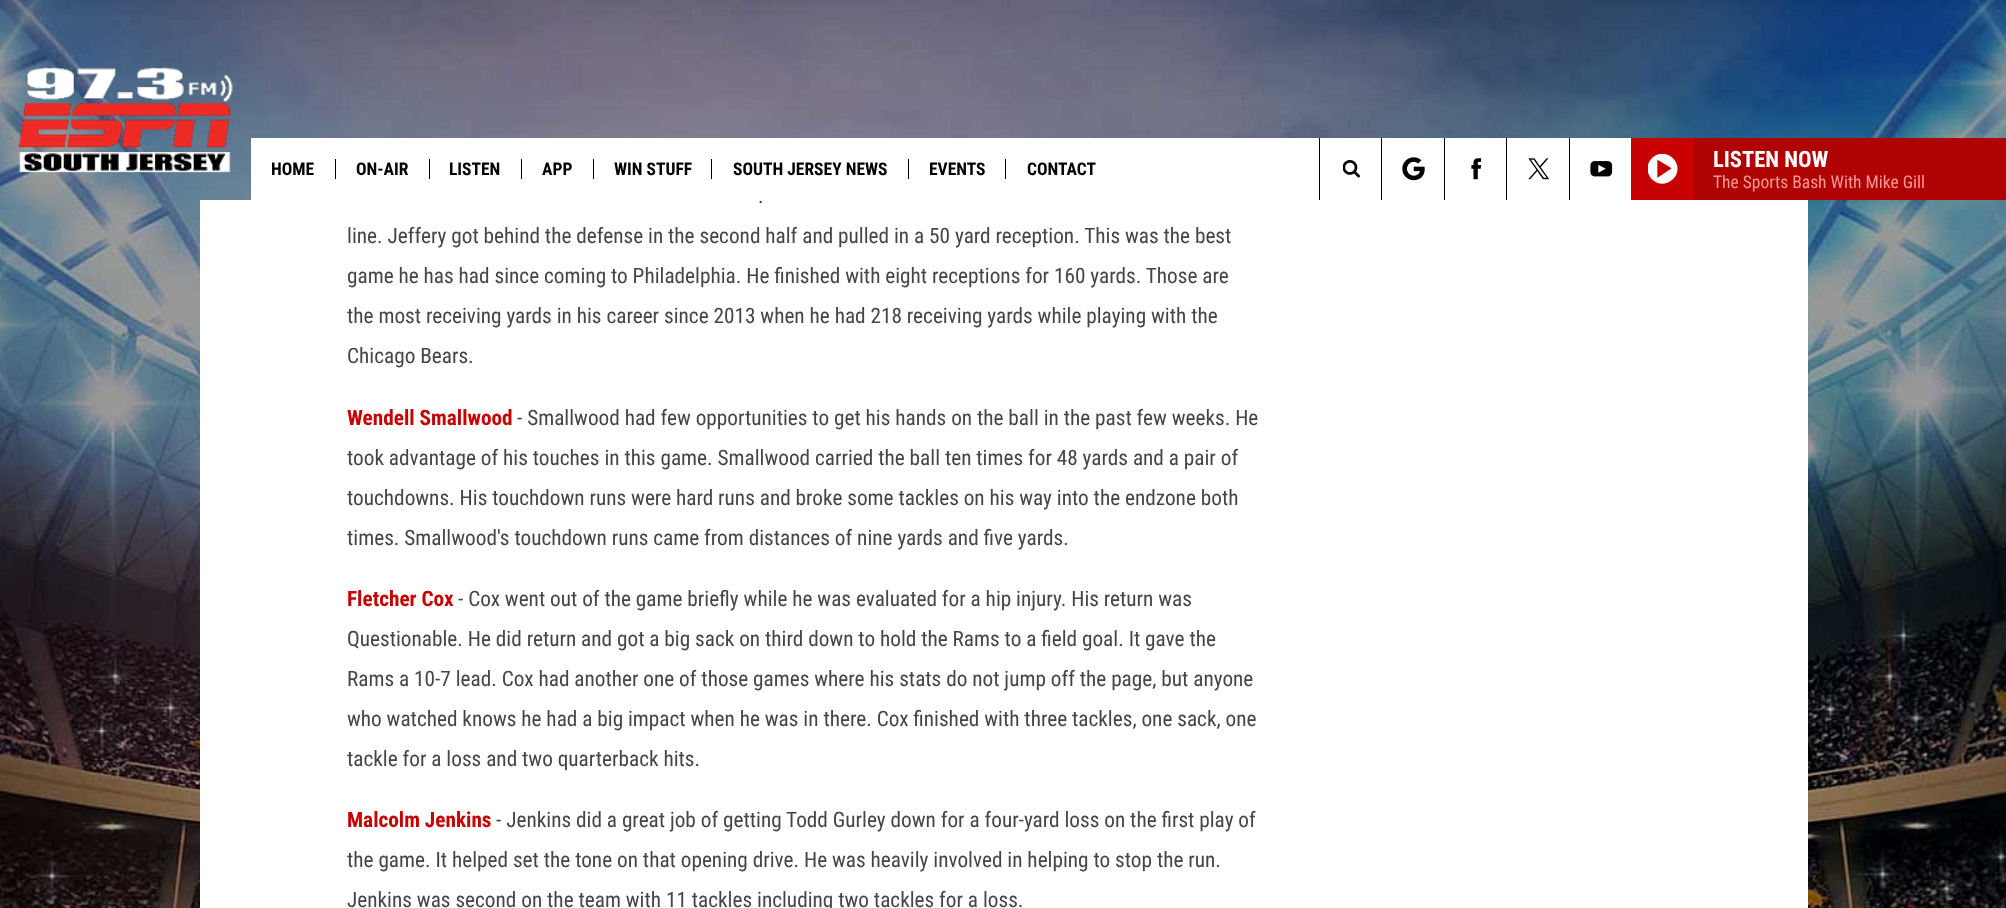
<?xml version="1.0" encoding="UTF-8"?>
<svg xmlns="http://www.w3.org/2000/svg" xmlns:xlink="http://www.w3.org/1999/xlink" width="2006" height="908">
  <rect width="100%" height="100%" fill="#ffffff" />
  <image x="0" y="200" width="2006" height="708" xlink:href="image1.png" />
  <image x="0" y="0" width="2006" height="200" xlink:href="image2.png" />
  <image x="18" y="67" width="215" height="106" xlink:href="image3.png" />
  <rect x="251" y="138" width="1380" height="62" fill="#ffffff" />
  <rect x="335" y="159" width="1" height="20" fill="#000000" />
  <rect x="429" y="159" width="1" height="20" fill="#000000" />
  <rect x="521" y="159" width="1" height="20" fill="#000000" />
  <rect x="593" y="159" width="1" height="20" fill="#000000" />
  <rect x="711" y="159" width="1" height="20" fill="#000000" />
  <rect x="908" y="159" width="1" height="20" fill="#000000" />
  <rect x="1005" y="159" width="1" height="20" fill="#000000" />
  <rect x="1319" y="138" width="1" height="62" fill="#000000" />
  <image x="1343" y="160" width="17" height="18" xlink:href="image4.png" />
  <rect x="1381" y="138" width="1" height="62" fill="#000000" />
  <image x="1402" y="157" width="23" height="24" xlink:href="image5.png" />
  <rect x="1444" y="138" width="1" height="62" fill="#000000" />
  <image x="1471" y="158" width="11" height="22" xlink:href="image6.png" />
  <rect x="1506" y="138" width="1" height="62" fill="#000000" />
  <image x="1528" y="158" width="22" height="22" xlink:href="image7.png" />
  <rect x="1569" y="138" width="1" height="62" fill="#000000" />
  <image x="1590" y="161" width="23" height="16" xlink:href="image8.png" />
  <rect x="1631" y="138" width="63" height="62" fill="#c80202" />
  <image x="1648" y="154" width="30" height="30" xlink:href="image9.png" />
  <rect x="1694" y="138" width="312" height="62" fill="#af0202" />
  <rect x="200" y="200" width="1608" height="708" fill="#ffffff" />
  <text x="271" y="175" style="font-family: Roboto Condensed; font-size: 17.5px; font-weight: bold; fill: #000000">HOME</text>
  <text x="356" y="175" style="font-family: Roboto Condensed; font-size: 17.5px; font-weight: bold; fill: #000000">ON-AIR</text>
  <text x="449" y="175" style="font-family: Roboto Condensed; font-size: 17.5px; font-weight: bold; fill: #000000">LISTEN</text>
  <text x="542" y="175" style="font-family: Roboto Condensed; font-size: 17.5px; font-weight: bold; fill: #000000">APP</text>
  <text x="614" y="175" style="font-family: Roboto Condensed; font-size: 17.5px; font-weight: bold; fill: #000000">WIN STUFF</text>
  <text x="733" y="175" style="font-family: Roboto Condensed; font-size: 17.5px; font-weight: bold; fill: #000000">SOUTH JERSEY NEWS</text>
  <text x="929" y="175" style="font-family: Roboto Condensed; font-size: 17.5px; font-weight: bold; fill: #000000">EVENTS</text>
  <text x="1027" y="175" style="font-family: Roboto Condensed; font-size: 17.5px; font-weight: bold; fill: #000000">CONTACT</text>
  <text x="1713" y="167" style="font-family: Roboto Condensed; font-size: 22.5px; font-weight: bold; fill: #ffffff">LISTEN NOW</text>
  <text x="1713" y="188" style="font-family: Roboto Condensed; font-size: 17.5px; fill: #fe9898">The Sports Bash With Mike Gill</text>
  <text x="758" y="203" style="font-family: Roboto Condensed; font-size: 21.25px; fill: #45444a">.</text>
  <text x="347" y="243" style="font-family: Roboto Condensed; font-size: 21.25px; fill: #45444a">line. Jeffery got behind the defense in the second half and pulled in a 50 yard reception. This was the best</text>
  <text x="347" y="283" style="font-family: Roboto Condensed; font-size: 21.25px; fill: #45444a">game he has had since coming to Philadelphia. He finished with eight receptions for 160 yards. Those are</text>
  <text x="347" y="323" style="font-family: Roboto Condensed; font-size: 21.25px; fill: #45444a">the most receiving yards in his career since 2013 when he had 218 receiving yards while playing with the</text>
  <text x="347" y="363" style="font-family: Roboto Condensed; font-size: 21.25px; fill: #45444a">Chicago Bears.</text>
  <text x="347" y="425" style="font-family: Roboto Condensed; font-size: 21.25px; font-weight: bold; fill: #c80202">Wendell Smallwood</text>
  <text x="517" y="425" style="font-family: Roboto Condensed; font-size: 21.25px; fill: #45444a">- Smallwood had few opportunities to get his hands on the ball in the past few weeks. He</text>
  <text x="347" y="465" style="font-family: Roboto Condensed; font-size: 21.25px; fill: #45444a">took advantage of his touches in this game. Smallwood carried the ball ten times for 48 yards and a pair of</text>
  <text x="347" y="505" style="font-family: Roboto Condensed; font-size: 21.25px; fill: #45444a">touchdowns. His touchdown runs were hard runs and broke some tackles on his way into the endzone both</text>
  <text x="347" y="545" style="font-family: Roboto Condensed; font-size: 21.25px; fill: #45444a">times. Smallwood's touchdown runs came from distances of nine yards and five yards.</text>
  <text x="347" y="606" style="font-family: Roboto Condensed; font-size: 21.25px; font-weight: bold; fill: #c80202">Fletcher Cox</text>
  <text x="458" y="606" style="font-family: Roboto Condensed; font-size: 21.25px; fill: #45444a">- Cox went out of the game briefly while he was evaluated for a hip injury. His return was</text>
  <text x="347" y="646" style="font-family: Roboto Condensed; font-size: 21.25px; fill: #45444a">Questionable. He did return and got a big sack on third down to hold the Rams to a field goal. It gave the</text>
  <text x="347" y="686" style="font-family: Roboto Condensed; font-size: 21.25px; fill: #45444a">Rams a 10-7 lead. Cox had another one of those games where his stats do not jump off the page, but anyone</text>
  <text x="347" y="726" style="font-family: Roboto Condensed; font-size: 21.25px; fill: #45444a">who watched knows he had a big impact when he was in there. Cox finished with three tackles, one sack, one</text>
  <text x="347" y="766" style="font-family: Roboto Condensed; font-size: 21.25px; fill: #45444a">tackle for a loss and two quarterback hits.</text>
  <text x="347" y="827" style="font-family: Roboto Condensed; font-size: 21.25px; font-weight: bold; fill: #c80202">Malcolm Jenkins</text>
  <text x="496" y="827" style="font-family: Roboto Condensed; font-size: 21.25px; fill: #45444a">- Jenkins did a great job of getting Todd Gurley down for a four-yard loss on the first play of</text>
  <text x="347" y="867" style="font-family: Roboto Condensed; font-size: 21.25px; fill: #45444a">the game. It helped set the tone on that opening drive. He was heavily involved in helping to stop the run.</text>
  <text x="347" y="907" style="font-family: Roboto Condensed; font-size: 21.25px; fill: #45444a">Jenkins was second on the team with 11 tackles including two tackles for a loss.</text>
</svg>
